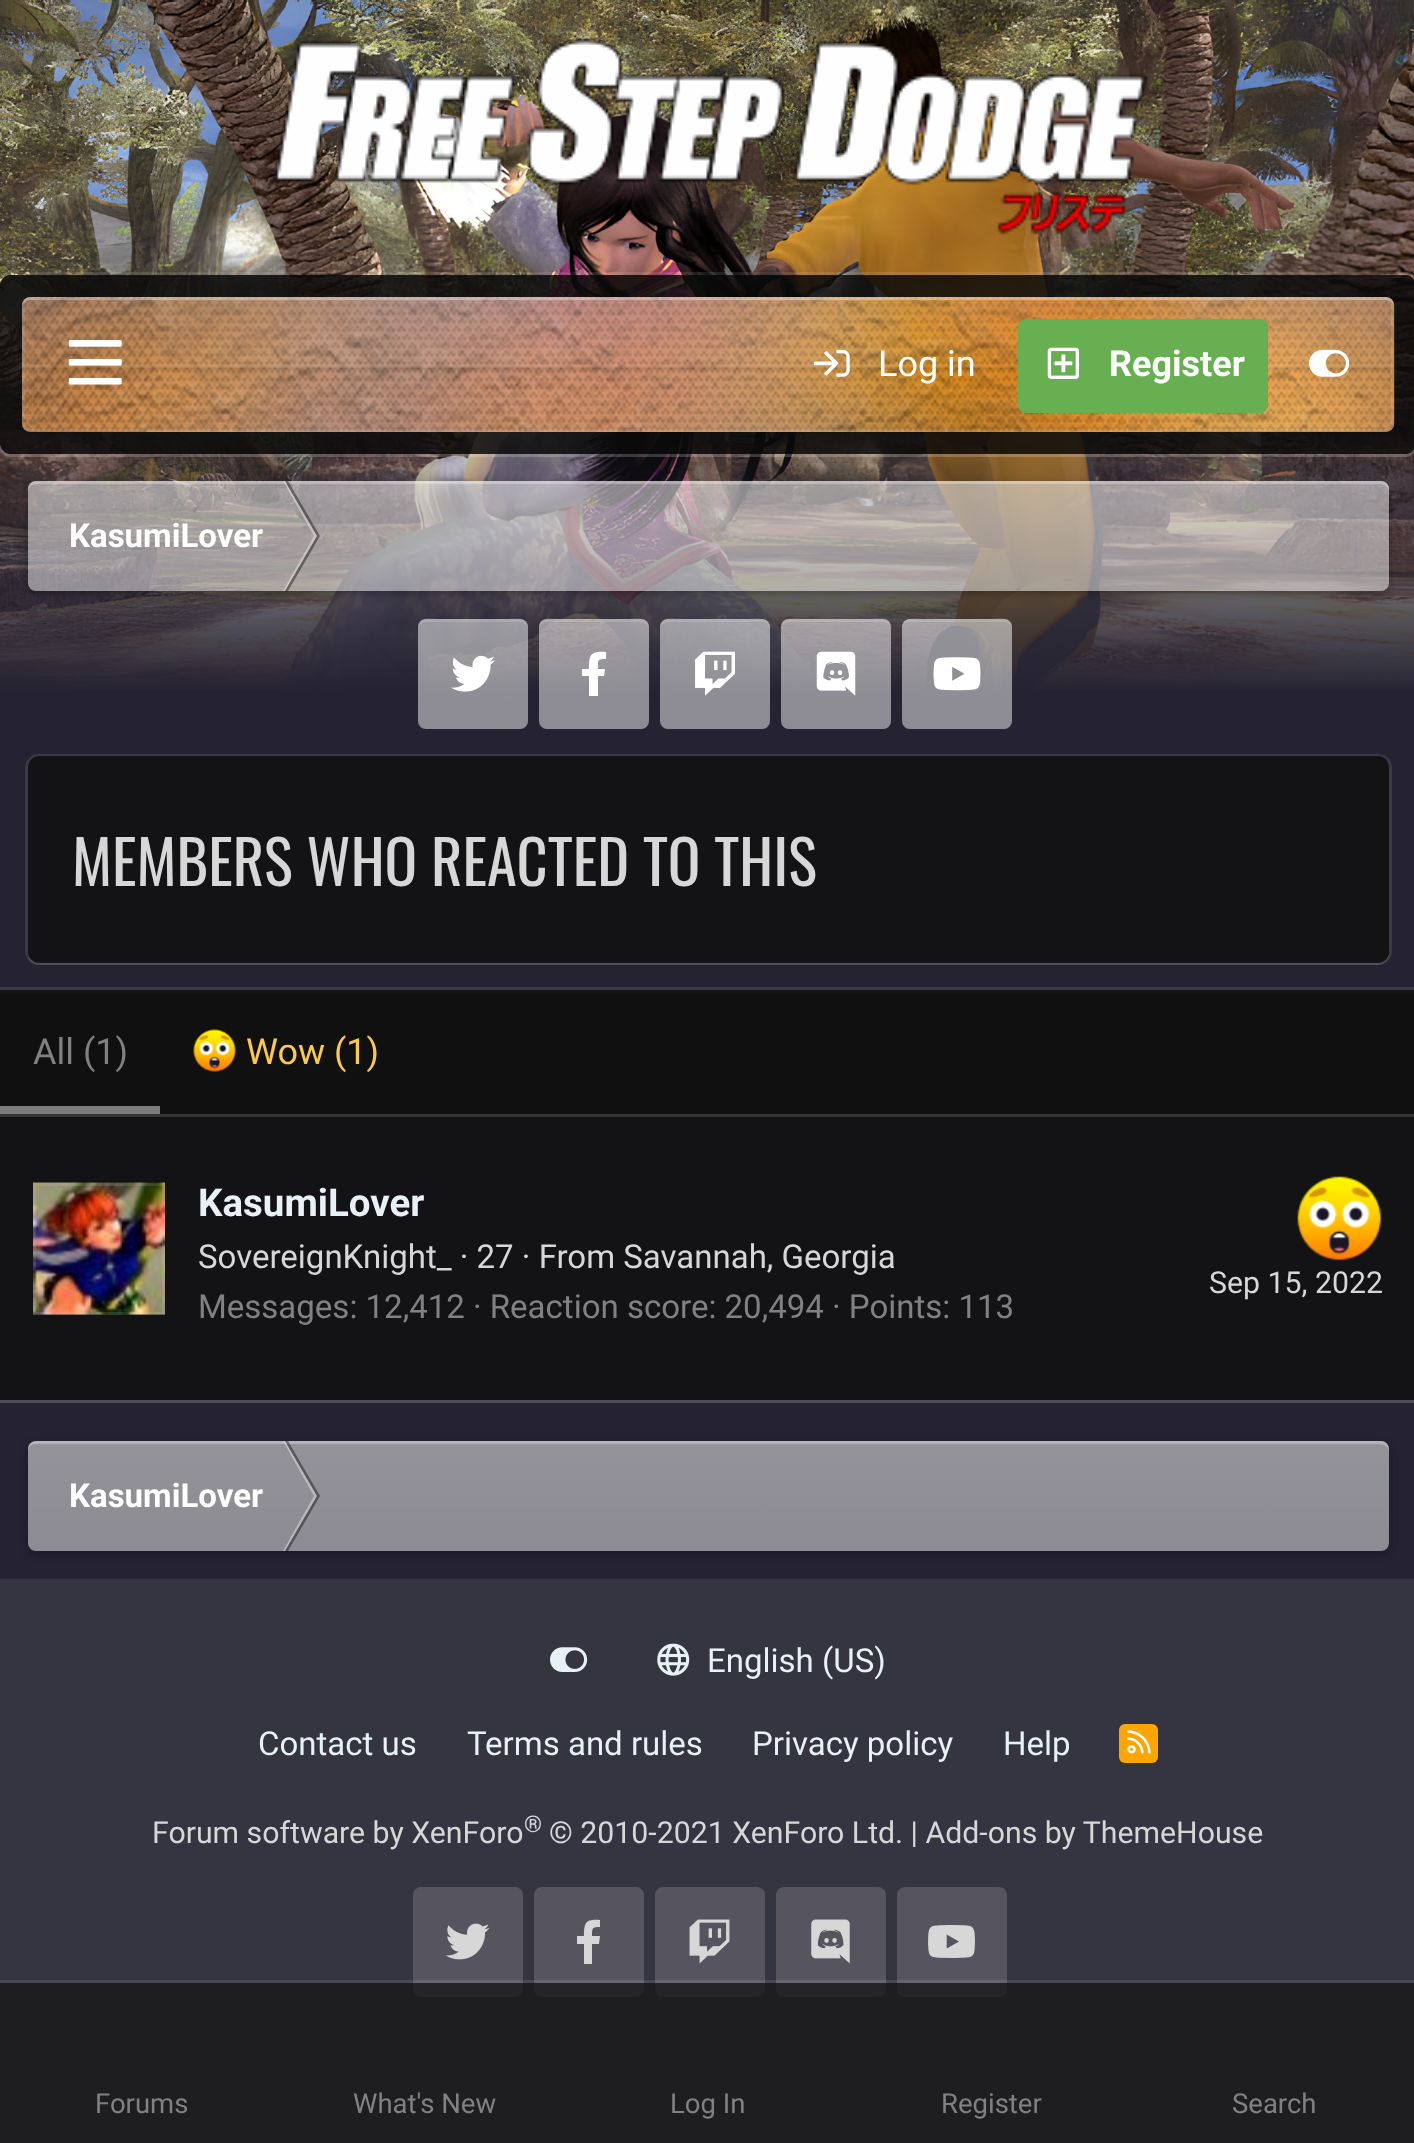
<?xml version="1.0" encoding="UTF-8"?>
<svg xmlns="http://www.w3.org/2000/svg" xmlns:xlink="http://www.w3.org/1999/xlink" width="1414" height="2143">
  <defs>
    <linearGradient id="g1" gradientUnits="userSpaceOnUse" x1="708" y1="355" x2="708" y2="710"><stop offset="0" stop-color="#252332" stop-opacity="0" /><stop offset="0.95" stop-color="#252332" /></linearGradient>
    <clipPath id="clip1"><path d="M 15 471 h 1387 v 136 h -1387 z m 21 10 h 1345 c 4.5 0 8 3.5 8 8 v 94 c 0 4.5 -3.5 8 -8 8 h -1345 c -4.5 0 -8 -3.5 -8 -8 v -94 c 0 -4.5 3.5 -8 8 -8 z" clip-rule="evenodd" /></clipPath>
    <linearGradient id="g2" gradientUnits="userSpaceOnUse" x1="708" y1="481" x2="708" y2="591"><stop offset="0" stop-color="#ffffff" stop-opacity="0.3" /><stop offset="1" stop-color="#ffffff" stop-opacity="0.25" /></linearGradient>
    <linearGradient id="g3" gradientUnits="userSpaceOnUse" x1="473" y1="619" x2="473" y2="729"><stop offset="0" stop-color="#ffffff" stop-opacity="0.3" /><stop offset="1" stop-color="#ffffff" stop-opacity="0.25" /></linearGradient>
    <linearGradient id="g4" gradientUnits="userSpaceOnUse" x1="594" y1="619" x2="594" y2="729"><stop offset="0" stop-color="#ffffff" stop-opacity="0.3" /><stop offset="1" stop-color="#ffffff" stop-opacity="0.25" /></linearGradient>
    <linearGradient id="g5" gradientUnits="userSpaceOnUse" x1="715" y1="619" x2="715" y2="729"><stop offset="0" stop-color="#ffffff" stop-opacity="0.3" /><stop offset="1" stop-color="#ffffff" stop-opacity="0.25" /></linearGradient>
    <linearGradient id="g6" gradientUnits="userSpaceOnUse" x1="836" y1="619" x2="836" y2="729"><stop offset="0" stop-color="#ffffff" stop-opacity="0.3" /><stop offset="1" stop-color="#ffffff" stop-opacity="0.25" /></linearGradient>
    <linearGradient id="g7" gradientUnits="userSpaceOnUse" x1="957" y1="619" x2="957" y2="729"><stop offset="0" stop-color="#ffffff" stop-opacity="0.3" /><stop offset="1" stop-color="#ffffff" stop-opacity="0.25" /></linearGradient>
    <clipPath id="clip2"><rect x="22" y="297" width="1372" height="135" rx="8" /></clipPath>
    <clipPath id="clip3"><path d="M 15 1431 h 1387 v 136 h -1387 z m 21 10 h 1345 c 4.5 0 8 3.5 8 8 v 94 c 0 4.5 -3.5 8 -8 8 h -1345 c -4.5 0 -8 -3.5 -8 -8 v -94 c 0 -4.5 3.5 -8 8 -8 z" clip-rule="evenodd" /></clipPath>
    <linearGradient id="g8" gradientUnits="userSpaceOnUse" x1="708" y1="1441" x2="708" y2="1551"><stop offset="0" stop-color="#ffffff" stop-opacity="0.3" /><stop offset="1" stop-color="#ffffff" stop-opacity="0.25" /></linearGradient>
  </defs>
  <rect width="100%" height="100%" fill="#252332" />
  <image x="0" y="0" width="1414" height="690" xlink:href="image1.png" />
  <rect y="362" width="1414" height="328" fill="url(#g1)" />
  <image x="271" y="38" width="877" height="197" xlink:href="image2.png" />
  <path d="M 0 443 v 3 c 0 6 5 11 11 11 h 1394 c 6 0 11 -5 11 -11 v -1 c -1 5 -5 9 -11 9 h -1394 c -6 0 -11 -5 -11 -11 z" fill="#ffffff" fill-opacity="0.1" />
  <rect x="-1.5" y="273.5" width="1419" height="182" rx="12.5" fill="none" stroke="#ffffff" stroke-opacity="0.1" stroke-width="3" />
  <rect y="275" width="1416" height="179" rx="11" fill="#0a0a0a" fill-opacity="0.85" />
  <g clip-path="url(#clip1)">
    <rect x="28" y="484" width="1361" height="110" rx="8" fill="#000000" fill-opacity="0.3" filter="blur(4px)" />
  </g>
  <rect x="28" y="481" width="1361" height="110" rx="8" fill="#ffffff" fill-opacity="0.3" />
  <rect x="28" y="481" width="1361" height="110" rx="8" fill="url(#g2)" />
  <path d="M 36 484 h 1344 c 5 0 9 4 9 8 v -3 c 0 -4 -4 -8 -8 -8 h -1345 c -4 0 -8 4 -8 8 v 3 c 0 -4 3 -8 8 -8 z" fill="#ffffff" fill-opacity="0.3" />
  <path d="M 283 481 h 2 l 32 55 h -3 z" fill="#ffffff" fill-opacity="0.38" />
  <path d="M 285 481 h 3 l 32 55 h -3 z" fill="#000000" fill-opacity="0.4" />
  <path d="M 314 536 h 3 l -32 55 h -2 z" fill="#ffffff" fill-opacity="0.38" />
  <path d="M 317 536 h 3 l -32 55 h -3 z" fill="#000000" fill-opacity="0.4" />
  <rect x="418" y="619" width="110" height="110" rx="8" fill="#ffffff" fill-opacity="0.3" />
  <rect x="418" y="619" width="110" height="110" rx="8" fill="url(#g3)" />
  <path d="M 426 622 h 94 c 4 0 8 3 8 8 c 0 -15 -11 -11 -24 -11 h -62 c -13 0 -24 -4 -24 11 c 0 -5 4 -8 8 -8 z" fill="#ffffff" fill-opacity="0.15" />
  <image x="451" y="655" width="44" height="37" xlink:href="image10.png" />
  <rect x="539" y="619" width="110" height="110" rx="8" fill="#ffffff" fill-opacity="0.3" />
  <rect x="539" y="619" width="110" height="110" rx="8" fill="url(#g4)" />
  <path d="M 547 622 h 94 c 4 0 8 3 8 8 c 0 -15 -11 -11 -24 -11 h -62 c -13 0 -24 -4 -24 11 c 0 -5 4 -8 8 -8 z" fill="#ffffff" fill-opacity="0.15" />
  <path d="M 604 676 h -6 v 20 h -9 v -20 h -7 v -7 h 7 c 0 -15 2 -18 17 -17 v 7 c -9 0 -8 1 -8 10 h 7 z" fill="#ffffff" />
  <rect x="660" y="619" width="110" height="110" rx="8" fill="#ffffff" fill-opacity="0.3" />
  <rect x="660" y="619" width="110" height="110" rx="8" fill="url(#g5)" />
  <path d="M 668 622 h 94 c 4 0 8 3 8 8 c 0 -15 -11 -11 -24 -11 h -62 c -13 0 -24 -4 -24 11 c 0 -5 4 -8 8 -8 z" fill="#ffffff" fill-opacity="0.15" />
  <image x="695" y="651" width="40" height="45" xlink:href="image11.png" />
  <rect x="781" y="619" width="110" height="110" rx="8" fill="#ffffff" fill-opacity="0.3" />
  <rect x="781" y="619" width="110" height="110" rx="8" fill="url(#g6)" />
  <path d="M 789 622 h 94 c 4 0 8 3 8 8 c 0 -15 -11 -11 -24 -11 h -62 c -13 0 -24 -4 -24 11 c 0 -5 4 -8 8 -8 z" fill="#ffffff" fill-opacity="0.15" />
  <image x="816" y="651" width="40" height="45" xlink:href="image12.png" />
  <rect x="902" y="619" width="110" height="110" rx="8" fill="#ffffff" fill-opacity="0.3" />
  <rect x="902" y="619" width="110" height="110" rx="8" fill="url(#g7)" />
  <path d="M 910 622 h 94 c 4 0 8 3 8 8 c 0 -15 -11 -11 -24 -11 h -62 c -13 0 -24 -4 -24 11 c 0 -5 4 -8 8 -8 z" fill="#ffffff" fill-opacity="0.15" />
  <image x="933" y="657" width="48" height="34" xlink:href="image13.png" />
  <path d="M 28 955 c 0 6 5 10 11 10 h 1339 c 6 0 11 -5 11 -11 v -186 v 184 c 0 6 -5 10 -11 10 h -1340 c -4 0 -9 -3 -10 -7 z" fill="#3b3947" />
  <rect x="26.5" y="755.5" width="1364" height="208" rx="12.5" fill="none" stroke="#ffffff" stroke-opacity="0.1" stroke-width="3" />
  <rect x="28" y="756" width="1361" height="207" rx="11" fill="#101010" fill-opacity="0.85" />
  <g clip-path="url(#clip2)">
    <rect x="-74" y="201" width="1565" height="327" fill="#262050" filter="blur(96px)" />
  </g>
  <image x="22" y="297" width="1373" height="135" xlink:href="image3.png" />
  <rect x="22" y="297" width="1372" height="135" rx="8" fill="#ffffff" fill-opacity="0.1" />
  <image x="22" y="297" width="1372" height="135" xlink:href="image4.png" />
  <path d="M 30 300 c -4 0 -8 3 -8 8 v -3 c 0 -4 4 -8 8 -8 h 1356 c 4 0 8 4 8 8 v 3 c 0 -5 -3 -8 -8 -8 z" fill="#ffffff" fill-opacity="0.3" />
  <rect x="23.5" y="298.5" width="1369" height="132" rx="6.5" fill="none" stroke="#ffffff" stroke-opacity="0.1" stroke-width="3" />
  <image x="33" y="297" width="121" height="135" xlink:href="image5.png" />
  <image x="68" y="340" width="54" height="45" xlink:href="image6.png" />
  <image x="814" y="349" width="36" height="28" xlink:href="image7.png" />
  <rect x="1018" y="319" width="250" height="94" rx="8" fill="#67af51" />
  <image x="1047" y="347" width="33" height="32" xlink:href="image8.png" />
  <image x="1309" y="349" width="41" height="28" xlink:href="image9.png" />
  <rect y="1400" width="1414" height="3" fill="#3b3947" />
  <rect x="-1.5" y="988.5" width="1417" height="413" fill="none" stroke="#ffffff" stroke-opacity="0.1" stroke-width="3" />
  <rect y="990" width="1414" height="410" fill="#131315" />
  <rect y="993" width="1414" height="121" fill="#101011" />
  <rect y="1114" width="1414" height="3" fill="#363636" />
  <rect y="1106" width="160" height="8" fill="#7c7c7c" />
  <image x="193" y="1029" width="43" height="43" xlink:href="image14.png" />
  <rect x="33" y="1314" width="132" height="1" fill="#101011" />
  <image x="33" y="1182" width="132" height="133" xlink:href="image15.png" />
  <rect x="34.5" y="1184.5" width="129" height="129" fill="none" stroke="#d7d7d7" stroke-opacity="0.15" stroke-width="3" />
  <image x="1297" y="1176" width="85" height="85" xlink:href="image16.png" />
  <g clip-path="url(#clip3)">
    <rect x="28" y="1444" width="1361" height="110" rx="8" fill="#000000" fill-opacity="0.3" filter="blur(4px)" />
  </g>
  <rect x="28" y="1441" width="1361" height="110" rx="8" fill="#ffffff" fill-opacity="0.3" />
  <rect x="28" y="1441" width="1361" height="110" rx="8" fill="url(#g8)" />
  <path d="M 36 1444 h 1344 c 5 0 9 3 9 8 v -3 c 0 -4 -4 -8 -8 -8 h -1345 c -4 0 -8 4 -8 8 v 3 c 0 -5 3 -8 8 -8 z" fill="#ffffff" fill-opacity="0.3" />
  <path d="M 283 1441 h 2 l 32 55 h -3 z" fill="#ffffff" fill-opacity="0.38" />
  <path d="M 285 1441 h 3 l 32 55 h -3 z" fill="#000000" fill-opacity="0.4" />
  <path d="M 314 1496 h 3 l -32 55 h -2 z" fill="#ffffff" fill-opacity="0.38" />
  <path d="M 317 1496 h 3 l -32 55 h -3 z" fill="#000000" fill-opacity="0.4" />
  <rect y="1579" width="1414" height="564" fill="#353441" />
  <image x="550" y="1647" width="38" height="25" xlink:href="image17.png" />
  <image x="657" y="1643" width="33" height="33" xlink:href="image18.png" />
  <rect x="1119" y="1724" width="39" height="39" rx="6" fill="#ffa500" />
  <image x="1127" y="1730" width="24" height="24" xlink:href="image19.png" />
  <image x="445" y="1923" width="45" height="37" xlink:href="image20.png" />
  <rect x="413" y="1887" width="110" height="110" rx="8" fill="#d7d7d7" fill-opacity="0.2" />
  <path d="M 599 1944 h -7 v 20 h -8 v -20 h -7 v -8 h 7 c 0 -14 2 -17 16 -16 v 7 c -8 0 -8 1 -8 9 h 8 z" fill="#d7d7d7" />
  <rect x="534" y="1887" width="110" height="110" rx="8" fill="#d7d7d7" fill-opacity="0.2" />
  <image x="689" y="1919" width="41" height="45" xlink:href="image21.png" />
  <rect x="655" y="1887" width="110" height="110" rx="8" fill="#d7d7d7" fill-opacity="0.2" />
  <image x="811" y="1919" width="39" height="45" xlink:href="image22.png" />
  <rect x="776" y="1887" width="110" height="110" rx="8" fill="#d7d7d7" fill-opacity="0.2" />
  <image x="928" y="1925" width="47" height="33" xlink:href="image23.png" />
  <rect x="897" y="1887" width="110" height="110" rx="8" fill="#d7d7d7" fill-opacity="0.2" />
  <rect y="1980" width="1414" height="3" fill="#ffffff" fill-opacity="0.1" />
  <rect y="1983" width="1414" height="160" fill="#191919" fill-opacity="0.8" />
  <text x="878" y="376" style="font-family: Roboto; font-size: 36px; fill: #ffffff">Log in</text>
  <text x="1109" y="376" style="font-family: Roboto; font-size: 36px; font-weight: bold; fill: #ffffff">Register</text>
  <text x="69" y="547" style="font-family: Roboto; font-size: 33px; font-weight: bold; fill: #ffffff">KasumiLover</text>
  <text x="72" y="886" style="font-family: Oswald; font-size: 60.5px; fill: #d7d7d7">MEMBERS WHO REACTED TO THIS</text>
  <text x="33" y="1064" style="font-family: Roboto; font-size: 36px; fill: #818181">All (1)</text>
  <text x="246" y="1064" style="font-family: Roboto; font-size: 36px; fill: #fdca47">Wow (1)</text>
  <text x="198" y="1216" style="font-family: Roboto; font-size: 38.5px; font-weight: bold; fill: #e7f1f6">KasumiLover</text>
  <text x="198" y="1268" style="font-family: Roboto; font-size: 33px; fill: #d7d7d7">SovereignKnight_ · 27 · From Savannah, Georgia</text>
  <text x="1209" y="1293" style="font-family: Roboto; font-size: 30.25px; fill: #d7d7d7">Sep 15, 2022</text>
  <text x="198" y="1318" style="font-family: Roboto; font-size: 33px; fill: #818181">Messages: 12,412 · Reaction score: 20,494 · Points: 113</text>
  <text x="69" y="1507" style="font-family: Roboto; font-size: 33px; font-weight: bold; fill: #ffffff">KasumiLover</text>
  <text x="707" y="1672" style="font-family: Roboto; font-size: 33px; fill: #e7f1f6">English (US)</text>
  <text x="258" y="1755" style="font-family: Roboto; font-size: 33px; fill: #e7f1f6">Contact us</text>
  <text x="467" y="1755" style="font-family: Roboto; font-size: 33px; fill: #e7f1f6">Terms and rules</text>
  <text x="752" y="1755" style="font-family: Roboto; font-size: 33px; fill: #e7f1f6">Privacy policy</text>
  <text x="1003" y="1755" style="font-family: Roboto; font-size: 33px; fill: #e7f1f6">Help</text>
  <text x="152" y="1843" style="font-family: Roboto; font-size: 30.25px; fill: #d7d7d7">Forum software by XenForo</text>
  <text x="524" y="1832" style="font-family: Roboto; font-size: 23px; fill: #d7d7d7">®</text>
  <text x="549" y="1843" style="font-family: Roboto; font-size: 30.25px; fill: #d7d7d7">© 2010-2021 XenForo Ltd. | Add-ons by ThemeHouse</text>
  <text x="95" y="2113" style="font-family: Roboto; font-size: 27.5px; fill: #818181">Forums</text>
  <text x="353" y="2113" style="font-family: Roboto; font-size: 27.5px; fill: #818181">What's New</text>
  <text x="670" y="2113" style="font-family: Roboto; font-size: 27.5px; fill: #818181">Log In</text>
  <text x="941" y="2113" style="font-family: Roboto; font-size: 27.5px; fill: #818181">Register</text>
  <text x="1232" y="2113" style="font-family: Roboto; font-size: 27.5px; fill: #818181">Search</text>
</svg>
